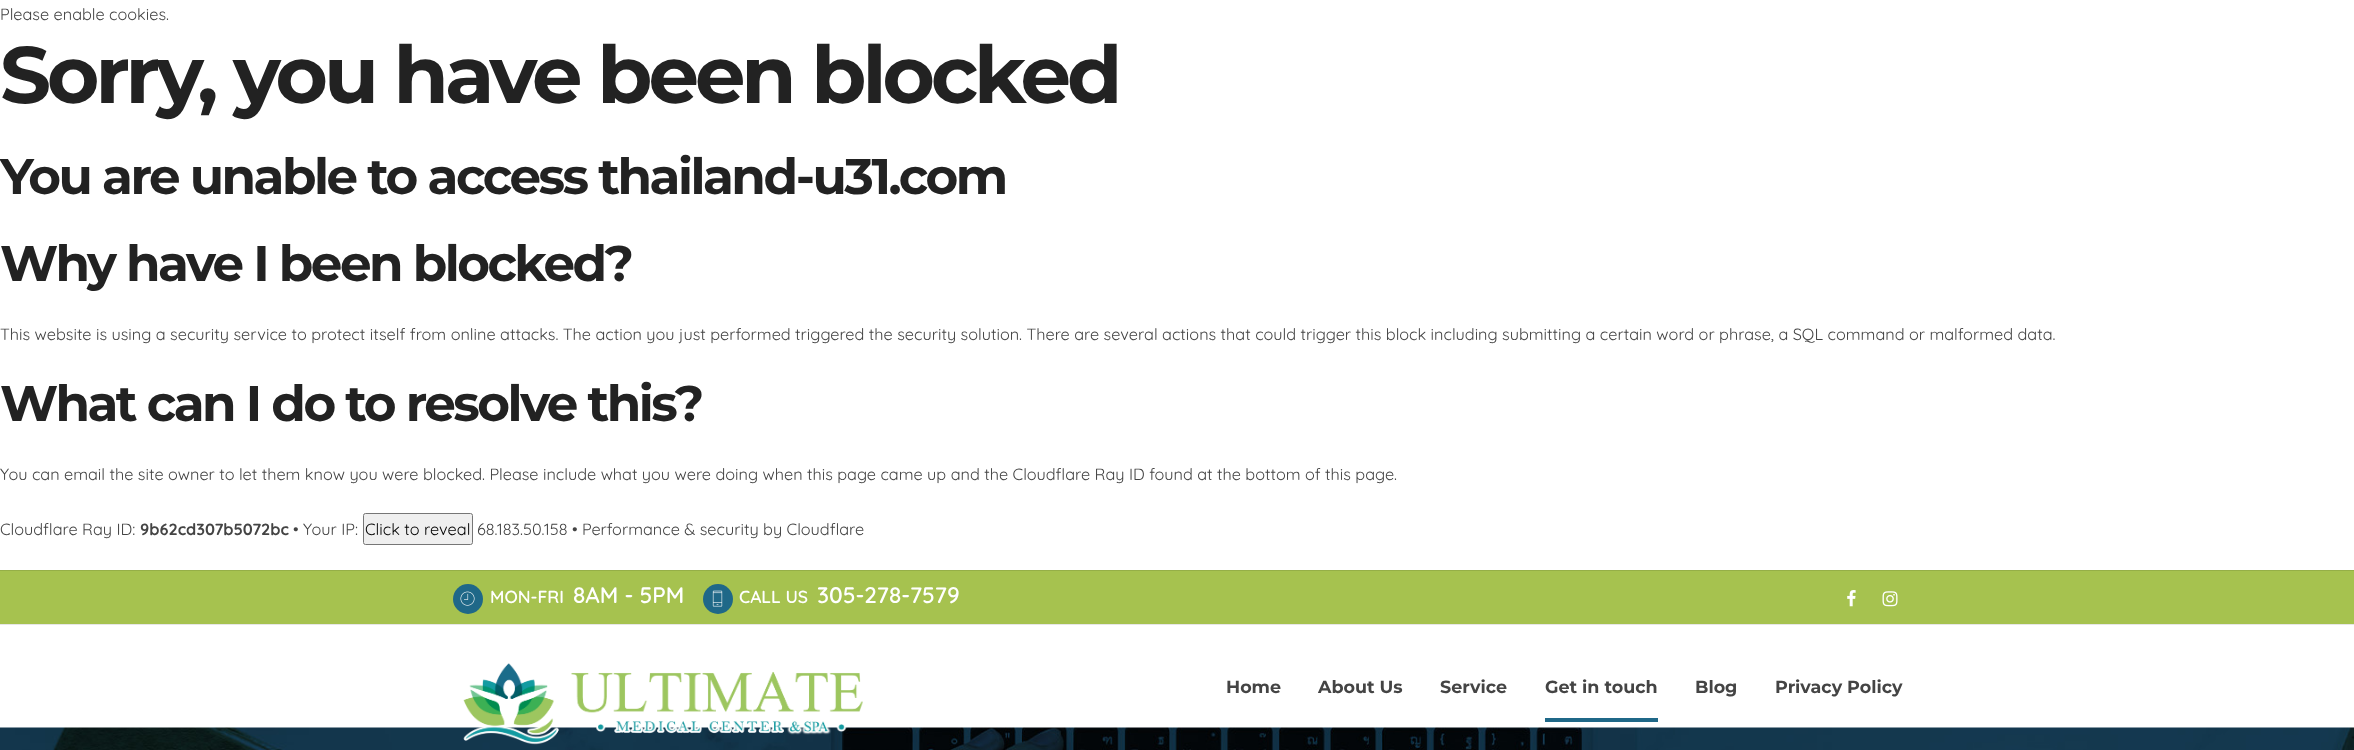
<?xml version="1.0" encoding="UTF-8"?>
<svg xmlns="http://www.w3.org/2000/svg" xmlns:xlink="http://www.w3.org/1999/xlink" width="2354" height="750">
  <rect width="100%" height="100%" fill="#ffffff" />
  <rect x="363.5" y="513.5" width="109" height="31" rx="2" fill="#efefef" stroke="#767676" />
  <rect y="571" width="2354" height="53" fill="#a6c24f" />
  <rect y="570" width="2354" height="1" fill="#95af47" />
  <circle cx="468" cy="599" r="15" fill="#1f6888" />
  <image x="460" y="591" width="15" height="15" xlink:href="image1.png" />
  <circle cx="718" cy="599" r="15" fill="#1f6888" />
  <image x="712" y="590" width="11" height="17" xlink:href="image2.png" />
  <image x="1847" y="590" width="9" height="17" xlink:href="image3.png" />
  <image x="1882" y="591" width="16" height="16" xlink:href="image4.png" />
  <rect y="624" width="2354" height="1" fill="#e6e6e6" />
  <image x="0" y="727" width="2354" height="23" xlink:href="image6.png" />
  <image x="463" y="663" width="400" height="82" xlink:href="image5.png" />
  <rect x="1545" y="718" width="113" height="4" fill="#1f6888" />
  <text x="0" y="20" style="font-family: Quicksand; font-size: 16.25px; fill: #444444">Please enable cookies.</text>
  <text x="0" y="103" style="font-family: Montserrat; font-size: 80px; font-weight: bold; letter-spacing: -4px; fill: #222222">Sorry, you have been blocked</text>
  <text x="0" y="194" style="font-family: Montserrat; font-size: 50px; font-weight: bold; letter-spacing: -2.5px; fill: #222222">You are unable to access thailand-u31.com</text>
  <text x="0" y="281" style="font-family: Montserrat; font-size: 50px; font-weight: bold; letter-spacing: -2.5px; fill: #222222">Why have I been blocked?</text>
  <text x="0" y="340" style="font-family: Quicksand; font-size: 16.25px; fill: #444444">This website is using a security service to protect itself from online attacks. The action you just performed triggered the security solution. There are several actions that could trigger this block including submitting a certain word or phrase, a SQL command or malformed data.</text>
  <text x="0" y="421" style="font-family: Montserrat; font-size: 50px; font-weight: bold; letter-spacing: -2.5px; fill: #222222">What can I do to resolve this?</text>
  <text x="0" y="480" style="font-family: Quicksand; font-size: 16.25px; fill: #444444">You can email the site owner to let them know you were blocked. Please include what you were doing when this page came up and the Cloudflare Ray ID found at the bottom of this page.</text>
  <text x="0" y="535" style="font-family: Quicksand; font-size: 16.25px; fill: #444444">Cloudflare Ray ID:</text>
  <text x="140" y="535" style="font-family: Quicksand; font-size: 16.25px; font-weight: bold; fill: #444444">9b62cd307b5072bc</text>
  <text x="293" y="535" style="font-family: Quicksand; font-size: 16.25px; fill: #444444">• Your IP:</text>
  <text x="365" y="535" style="font-family: Quicksand; font-size: 16.25px; fill: #000000">Click to reveal</text>
  <text x="477" y="535" style="font-family: Quicksand; font-size: 16.25px; fill: #444444">68.183.50.158 • Performance &amp; security by Cloudflare</text>
  <text x="490" y="603" style="font-family: Quicksand; font-size: 17.5px; font-weight: 600; fill: #ffffff">MON-FRI</text>
  <text x="573" y="603" style="font-family: Quicksand; font-size: 22.5px; font-weight: 600; fill: #ffffff">8AM - 5PM</text>
  <text x="739" y="603" style="font-family: Quicksand; font-size: 17.5px; font-weight: 600; fill: #ffffff">CALL US</text>
  <text x="817" y="603" style="font-family: Quicksand; font-size: 22.5px; font-weight: 600; fill: #ffffff">305-278-7579</text>
  <text x="1226" y="693" style="font-family: Montserrat; font-size: 17.5px; font-weight: bold; fill: #444444">Home</text>
  <text x="1318" y="693" style="font-family: Montserrat; font-size: 17.5px; font-weight: bold; fill: #444444">About Us</text>
  <text x="1440" y="693" style="font-family: Montserrat; font-size: 17.5px; font-weight: bold; fill: #444444">Service</text>
  <text x="1545" y="693" style="font-family: Montserrat; font-size: 17.5px; font-weight: bold; fill: #444444">Get in touch</text>
  <text x="1695" y="693" style="font-family: Montserrat; font-size: 17.5px; font-weight: bold; fill: #444444">Blog</text>
  <text x="1775" y="693" style="font-family: Montserrat; font-size: 17.5px; font-weight: bold; fill: #444444">Privacy Policy</text>
</svg>
